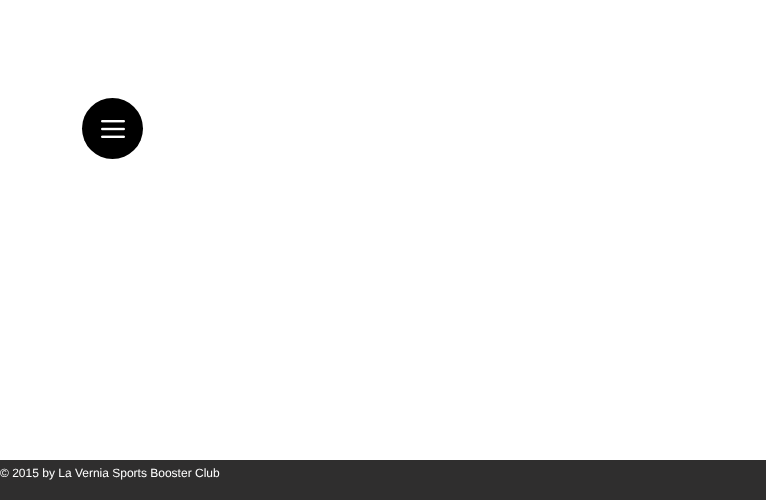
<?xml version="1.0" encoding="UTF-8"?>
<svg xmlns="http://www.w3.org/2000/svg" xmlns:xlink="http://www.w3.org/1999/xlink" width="766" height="500">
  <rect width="100%" height="100%" fill="#ffffff" />
  <circle cx="112.5" cy="128.5" r="30.5" fill="#000000" />
  <image x="101" y="120" width="24" height="18" xlink:href="image1.png" />
  <rect y="460" width="766" height="40" fill="#2f2e2e" />
  <text x="0" y="477" style="font-family: Liberation Sans; font-size: 12px; fill: #ffffff">© 2015 by La Vernia Sports Booster Club</text>
</svg>
